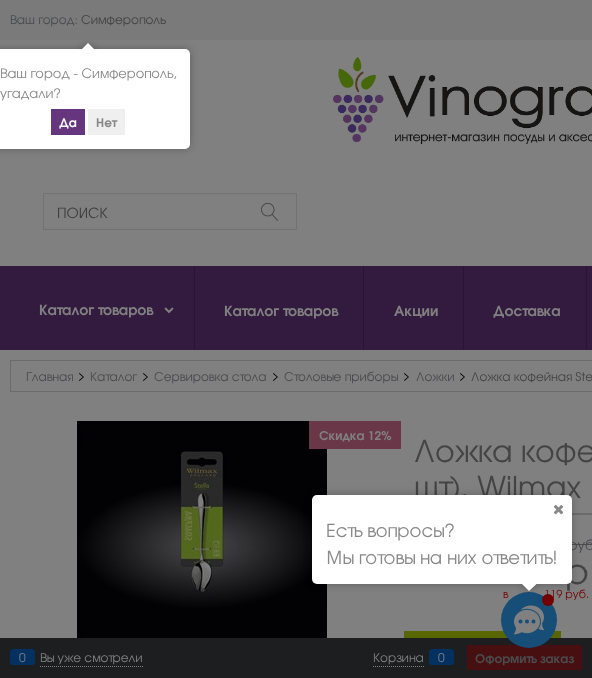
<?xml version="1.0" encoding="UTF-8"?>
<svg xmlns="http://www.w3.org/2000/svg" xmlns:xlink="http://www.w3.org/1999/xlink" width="592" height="678">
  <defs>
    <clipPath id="clip1"><rect x="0" y="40" width="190" height="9" /></clipPath>
    <clipPath id="clip2"><rect y="40" width="190" height="9" /></clipPath>
    <clipPath id="clip3"><rect x="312" y="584" width="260" height="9" /></clipPath>
    <clipPath id="clip4"><rect x="312" y="584" width="260" height="9" /></clipPath>
  </defs>
  <rect width="100%" height="100%" fill="#808080" />
  <rect width="592" height="40" fill="#7a7a7a" />
  <image x="333" y="57" width="259" height="87" xlink:href="image1.png" />
  <rect x="43" y="193" width="254" height="1" fill="#717272" />
  <rect x="43" y="229" width="208" height="1" fill="#717272" />
  <rect x="43" y="193" width="1" height="37" fill="#717272" />
  <rect x="296" y="193" width="1" height="37" fill="#717272" />
  <rect x="251" y="229" width="46" height="1" fill="#717272" />
  <image x="261" y="202" width="17" height="19" xlink:href="image2.png" />
  <rect y="266" width="592" height="84" fill="#331b3f" />
  <rect x="194" y="266" width="1" height="84" fill="#281433" />
  <image x="164" y="307" width="10" height="7" xlink:href="image3.png" />
  <rect x="363" y="266" width="1" height="84" fill="#281433" />
  <rect x="463" y="266" width="1" height="84" fill="#281433" />
  <rect x="586" y="266" width="1" height="84" fill="#281433" />
  <rect x="10.5" y="360.5" width="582" height="31" fill="none" stroke="#6b6b6b" />
  <image x="77" y="421" width="250" height="217" xlink:href="image4.png" />
  <rect x="309" y="421" width="92" height="28" fill="#6a3749" />
  <rect x="572" y="513" width="20" height="2" fill="#6b6b6b" />
  <rect x="564" y="544" width="28" height="1" fill="#4a4b4e" />
  <rect x="404" y="631" width="157" height="7" fill="#596702" />
  <rect x="-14" y="49" width="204" height="100" rx="5" fill="#000000" fill-opacity="0.25" filter="blur(4.5px)" />
  <rect x="-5" y="49" width="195" height="100" rx="5" fill="#ffffff" />
  <g clip-path="url(#clip1)">
    <rect x="83" y="45" width="10" height="10" fill="#000000" fill-opacity="0.25" filter="blur(4.5px)" />
  </g>
  <g clip-path="url(#clip2)">
    <path d="M 88 43 l 7 7 l -7 7 l -7 -7 z" fill="#ffffff" />
  </g>
  <rect x="51" y="109" width="34" height="26" fill="#65367e" />
  <rect x="88" y="109" width="37" height="26" fill="#efefef" />
  <rect y="638" width="592" height="40" fill="#1c1e20" />
  <path d="M 40 666.5 h 103" fill="none" stroke="#808080" stroke-dasharray="1 1" />
  <rect x="10" y="649" width="25" height="16" rx="3" fill="#033161" />
  <path d="M 373 666.5 h 51" fill="none" stroke="#808080" stroke-dasharray="1 1" />
  <rect x="429" y="649" width="25" height="16" rx="3" fill="#033161" />
  <rect x="467" y="645" width="115" height="25" fill="#470f10" />
  <text x="10" y="24" style="font-family: TeX Gyre Adventor; font-size: 12px; fill: #4a4b4e">Ваш город:</text>
  <text x="81" y="24" style="font-family: TeX Gyre Adventor; font-size: 12px; fill: #444444">Симферополь</text>
  <text x="57" y="218" style="font-family: TeX Gyre Adventor; font-size: 14px; fill: #3b3b3b">ПОИСК</text>
  <text x="39" y="315" style="font-family: TeX Gyre Adventor; font-size: 14px; font-weight: bold; fill: #808080">Каталог товаров</text>
  <text x="224" y="316" style="font-family: TeX Gyre Adventor; font-size: 14px; font-weight: bold; fill: #808080">Каталог товаров</text>
  <text x="394" y="316" style="font-family: TeX Gyre Adventor; font-size: 14px; font-weight: bold; fill: #808080">Акции</text>
  <text x="493" y="316" style="font-family: TeX Gyre Adventor; font-size: 14px; font-weight: bold; fill: #808080">Доставка</text>
  <text x="26" y="381" style="font-family: TeX Gyre Adventor; font-size: 12px; fill: #4a4b4e">Главная</text>
  <text x="78" y="380" style="font-family: TeX Gyre Adventor; font-size: 12px; fill: #000000">&gt;</text>
  <text x="90" y="381" style="font-family: TeX Gyre Adventor; font-size: 12px; fill: #4a4b4e">Каталог</text>
  <text x="142" y="380" style="font-family: TeX Gyre Adventor; font-size: 12px; fill: #000000">&gt;</text>
  <text x="154" y="381" style="font-family: TeX Gyre Adventor; font-size: 12px; fill: #4a4b4e">Сервировка стола</text>
  <text x="272" y="380" style="font-family: TeX Gyre Adventor; font-size: 12px; fill: #000000">&gt;</text>
  <text x="284" y="381" style="font-family: TeX Gyre Adventor; font-size: 12px; fill: #4a4b4e">Столовые приборы</text>
  <text x="403" y="380" style="font-family: TeX Gyre Adventor; font-size: 12px; fill: #000000">&gt;</text>
  <text x="416" y="381" style="font-family: TeX Gyre Adventor; font-size: 12px; fill: #4a4b4e">Ложки</text>
  <text x="459" y="380" style="font-family: TeX Gyre Adventor; font-size: 12px; fill: #000000">&gt;</text>
  <text x="471" y="381" style="font-family: TeX Gyre Adventor; font-size: 12px; fill: #444444">Ложка кофейная Ste</text>
  <text x="319" y="440" style="font-family: TeX Gyre Adventor; font-size: 12px; font-weight: bold; fill: #808080">Скидка 12%</text>
  <text x="414" y="462" style="font-family: TeX Gyre Adventor; font-size: 30px; fill: #444444">Ложка кофе</text>
  <text x="414" y="498" style="font-family: TeX Gyre Adventor; font-size: 30px; fill: #444444">шт). Wilmax</text>
  <text x="568" y="550" style="font-family: TeX Gyre Adventor; font-size: 14px; fill: #4a4b4e">руб</text>
  <text x="565" y="584" style="font-family: TeX Gyre Adventor; font-size: 35px; fill: #444444">р</text>
  <text x="503" y="598" style="font-family: TeX Gyre Adventor; font-size: 11px; fill: #710505">в</text>
  <text x="544" y="598" style="font-family: TeX Gyre Adventor; font-size: 11px; fill: #710505">119 руб.</text>
  <text x="0" y="78" style="font-family: TeX Gyre Adventor; font-size: 13px; fill: #888888">Ваш город - Симферополь,</text>
  <text x="0" y="98" style="font-family: TeX Gyre Adventor; font-size: 13px; fill: #888888">угадали?</text>
  <text x="59" y="127" style="font-family: TeX Gyre Adventor; font-size: 12px; font-weight: bold; fill: #ffffff">Да</text>
  <text x="96" y="127" style="font-family: TeX Gyre Adventor; font-size: 12px; font-weight: bold; fill: #888888">Нет</text>
  <circle cx="529" cy="620" r="28" fill="#174e77" />
  <image x="514" y="605" width="30" height="30" xlink:href="image6.png" />
  <circle cx="548" cy="600" r="6" fill="#720001" />
  <rect x="312" y="495" width="260" height="89" rx="5" fill="#000000" fill-opacity="0.25" filter="blur(4.5px)" />
  <rect x="312" y="495" width="260" height="89" rx="5" fill="#ffffff" />
  <image x="553" y="505" width="11" height="10" xlink:href="image5.png" />
  <g clip-path="url(#clip3)">
    <rect x="524" y="579" width="10" height="10" fill="#000000" fill-opacity="0.25" filter="blur(4.5px)" />
  </g>
  <g clip-path="url(#clip4)">
    <path d="M 529 576.5 l 7.5 7.5 l -7.5 7 l -7 -7 z" fill="#ffffff" />
  </g>
  <text x="326" y="564" style="font-family: TeX Gyre Adventor; font-size: 18px; fill: #888888">Мы готовы на них ответить!</text>
  <text x="326" y="537" style="font-family: TeX Gyre Adventor; font-size: 18px; fill: #888888">Есть вопросы?</text>
  <text x="19" y="662" style="font-family: TeX Gyre Adventor; font-size: 12px; fill: #808080">0</text>
  <text x="40" y="662" style="font-family: TeX Gyre Adventor; font-size: 12px; fill: #808080">Вы уже смотрели</text>
  <text x="373" y="662" style="font-family: TeX Gyre Adventor; font-size: 12px; fill: #808080">Корзина</text>
  <text x="438" y="662" style="font-family: TeX Gyre Adventor; font-size: 12px; fill: #808080">0</text>
  <text x="475" y="663" style="font-family: TeX Gyre Adventor; font-size: 12px; font-weight: bold; fill: #4a4b4e">Оформить заказ</text>
</svg>
